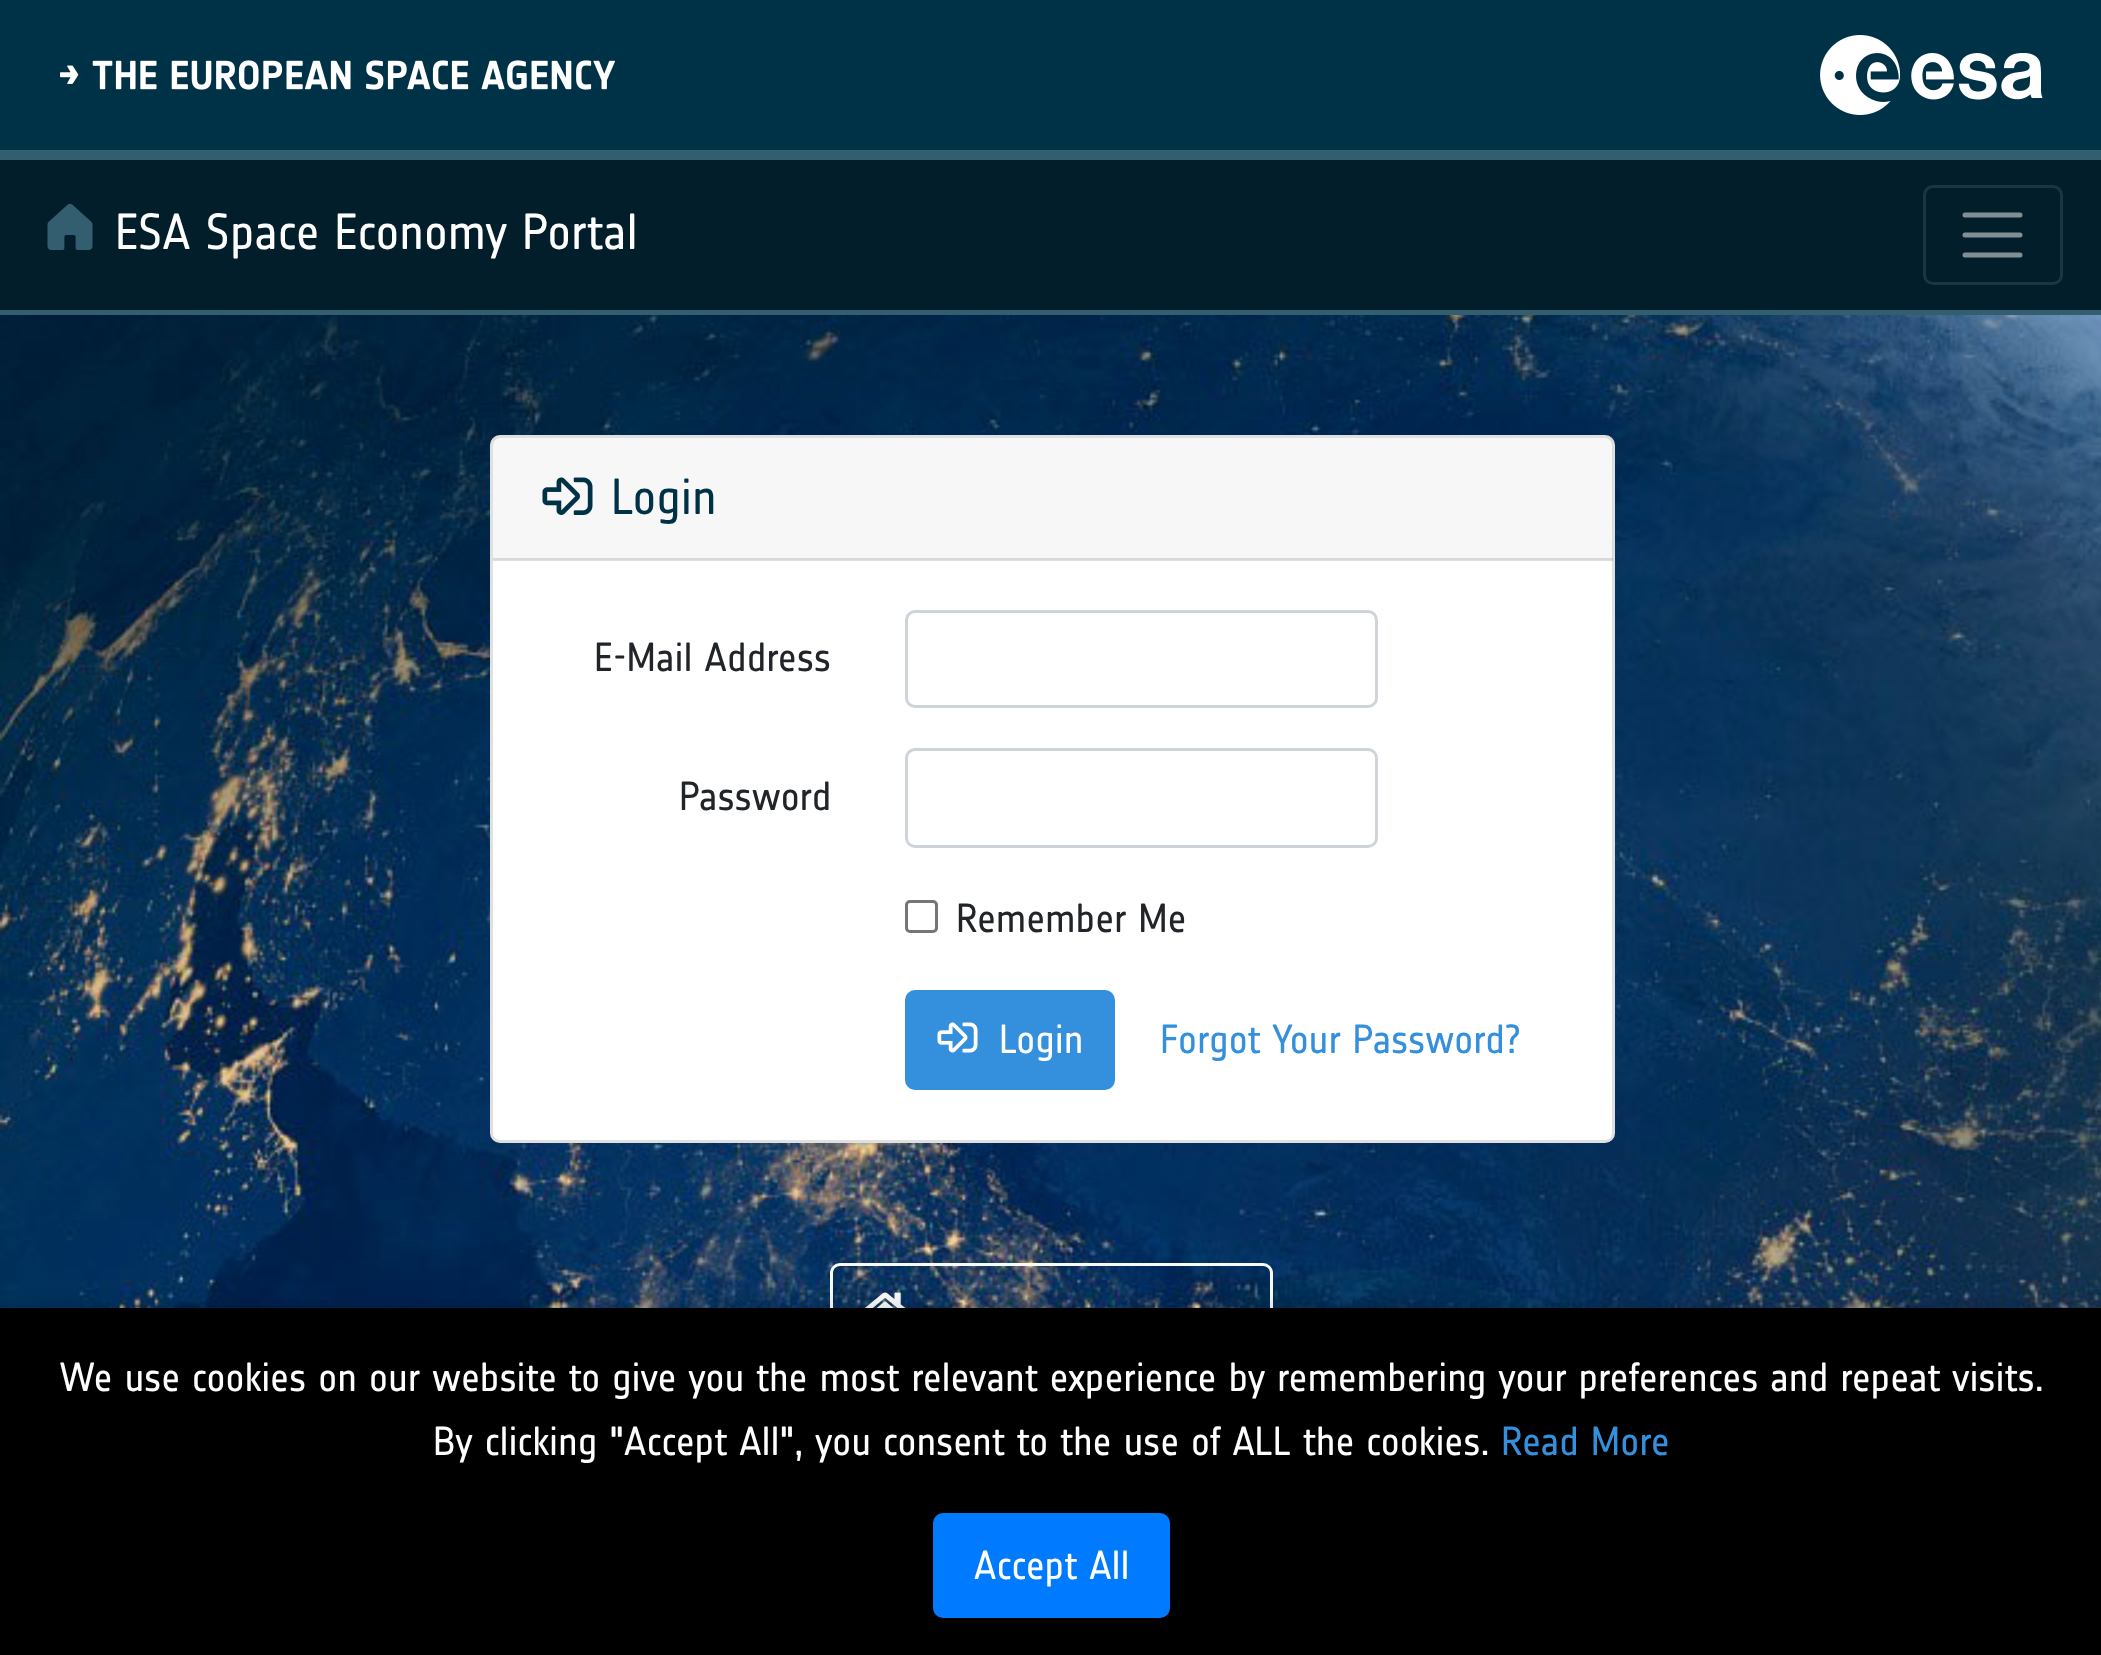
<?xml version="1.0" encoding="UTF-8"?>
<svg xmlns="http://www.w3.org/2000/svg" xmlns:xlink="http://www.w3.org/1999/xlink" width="2101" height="1655">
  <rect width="100%" height="100%" fill="#ffffff" />
  <image x="0" y="315" width="2101" height="993" xlink:href="image1.png" />
  <rect width="2101" height="150" fill="#003247" />
  <rect y="150" width="2101" height="10" fill="#335e6f" />
  <image x="60" y="60" width="555" height="30" xlink:href="image2.png" />
  <image x="1820" y="35" width="223" height="80" xlink:href="image3.png" />
  <rect y="160" width="2101" height="150" fill="#031e2b" />
  <rect y="310" width="2101" height="5" fill="#335e6f" />
  <image x="47" y="203" width="46" height="47" xlink:href="image4.png" />
  <rect x="1924.5" y="186.5" width="137" height="97" rx="8.5" fill="none" stroke="#1c3540" stroke-width="3" />
  <path d="M 1965 215 h 55 m -55 20 h 55 m -55 20 h 55" fill="none" stroke="#818f95" stroke-width="5" stroke-linecap="round" />
  <rect x="490" y="435" width="1125" height="708" rx="10" fill="#ffffff" />
  <rect x="491.5" y="436.5" width="1122" height="705" rx="8.5" fill="none" stroke="#000000" stroke-opacity="0.12" stroke-width="3" />
  <rect x="493" y="438" width="1120" height="122" fill="#000000" fill-opacity="0.03" />
  <rect x="493" y="558" width="1120" height="3" fill="#000000" fill-opacity="0.12" />
  <image x="542" y="477" width="51" height="38" xlink:href="image5.png" />
  <rect x="906.5" y="611.5" width="470" height="95" rx="8.5" fill="none" stroke="#ced4da" stroke-width="3" />
  <rect x="906.5" y="749.5" width="470" height="97" rx="8.5" fill="none" stroke="#ced4da" stroke-width="3" />
  <rect x="906.5" y="901.5" width="30" height="30" rx="3.5" fill="none" stroke="#767676" stroke-width="3" />
  <rect x="906.5" y="991.5" width="207" height="97" rx="8.5" fill="#3490dc" stroke="#3490dc" stroke-width="3" />
  <image x="937" y="1022" width="41" height="31" xlink:href="image6.png" />
  <rect x="831.5" y="1264.5" width="440" height="97" rx="8.5" fill="none" stroke="#f8f9fa" stroke-width="3" />
  <image x="865" y="1292" width="41" height="16" xlink:href="image7.png" />
  <rect y="1303" width="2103" height="347" fill="#000000" fill-opacity="0.1" filter="blur(7.5px)" />
  <rect y="1308" width="2101" height="347" fill="#000000" />
  <rect x="933" y="1513" width="237" height="105" rx="10" fill="#007bff" />
  <text x="115" y="249" style="font-family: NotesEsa; font-size: 50px; fill: #ffffff">ESA Space Economy Portal</text>
  <text x="611" y="514" style="font-family: NotesEsa; font-size: 50px; fill: #003247">Login</text>
  <text x="594" y="671" style="font-family: NotesEsa; font-size: 40px; fill: #212529">E-Mail Address</text>
  <text x="679" y="810" style="font-family: NotesEsa; font-size: 40px; fill: #212529">Password</text>
  <text x="956" y="932" style="font-family: NotesEsa; font-size: 40px; fill: #212529">Remember Me</text>
  <text x="999" y="1053" style="font-family: NotesEsa; font-size: 40px; fill: #ffffff">Login</text>
  <text x="1160" y="1053" style="font-family: NotesEsa; font-size: 40px; fill: #3490dc">Forgot Your Password?</text>
  <text x="59" y="1391" style="font-family: NotesEsa; font-size: 40px; fill: #ffffff">We use cookies on our website to give you the most relevant experience by remembering your preferences and repeat visits.</text>
  <text x="433" y="1455" style="font-family: NotesEsa; font-size: 40px; fill: #ffffff">By clicking "Accept All", you consent to the use of ALL the cookies.</text>
  <text x="1501" y="1455" style="font-family: NotesEsa; font-size: 40px; fill: #3490dc">Read More</text>
  <text x="974" y="1579" style="font-family: NotesEsa; font-size: 40px; fill: #ffffff">Accept All</text>
</svg>
